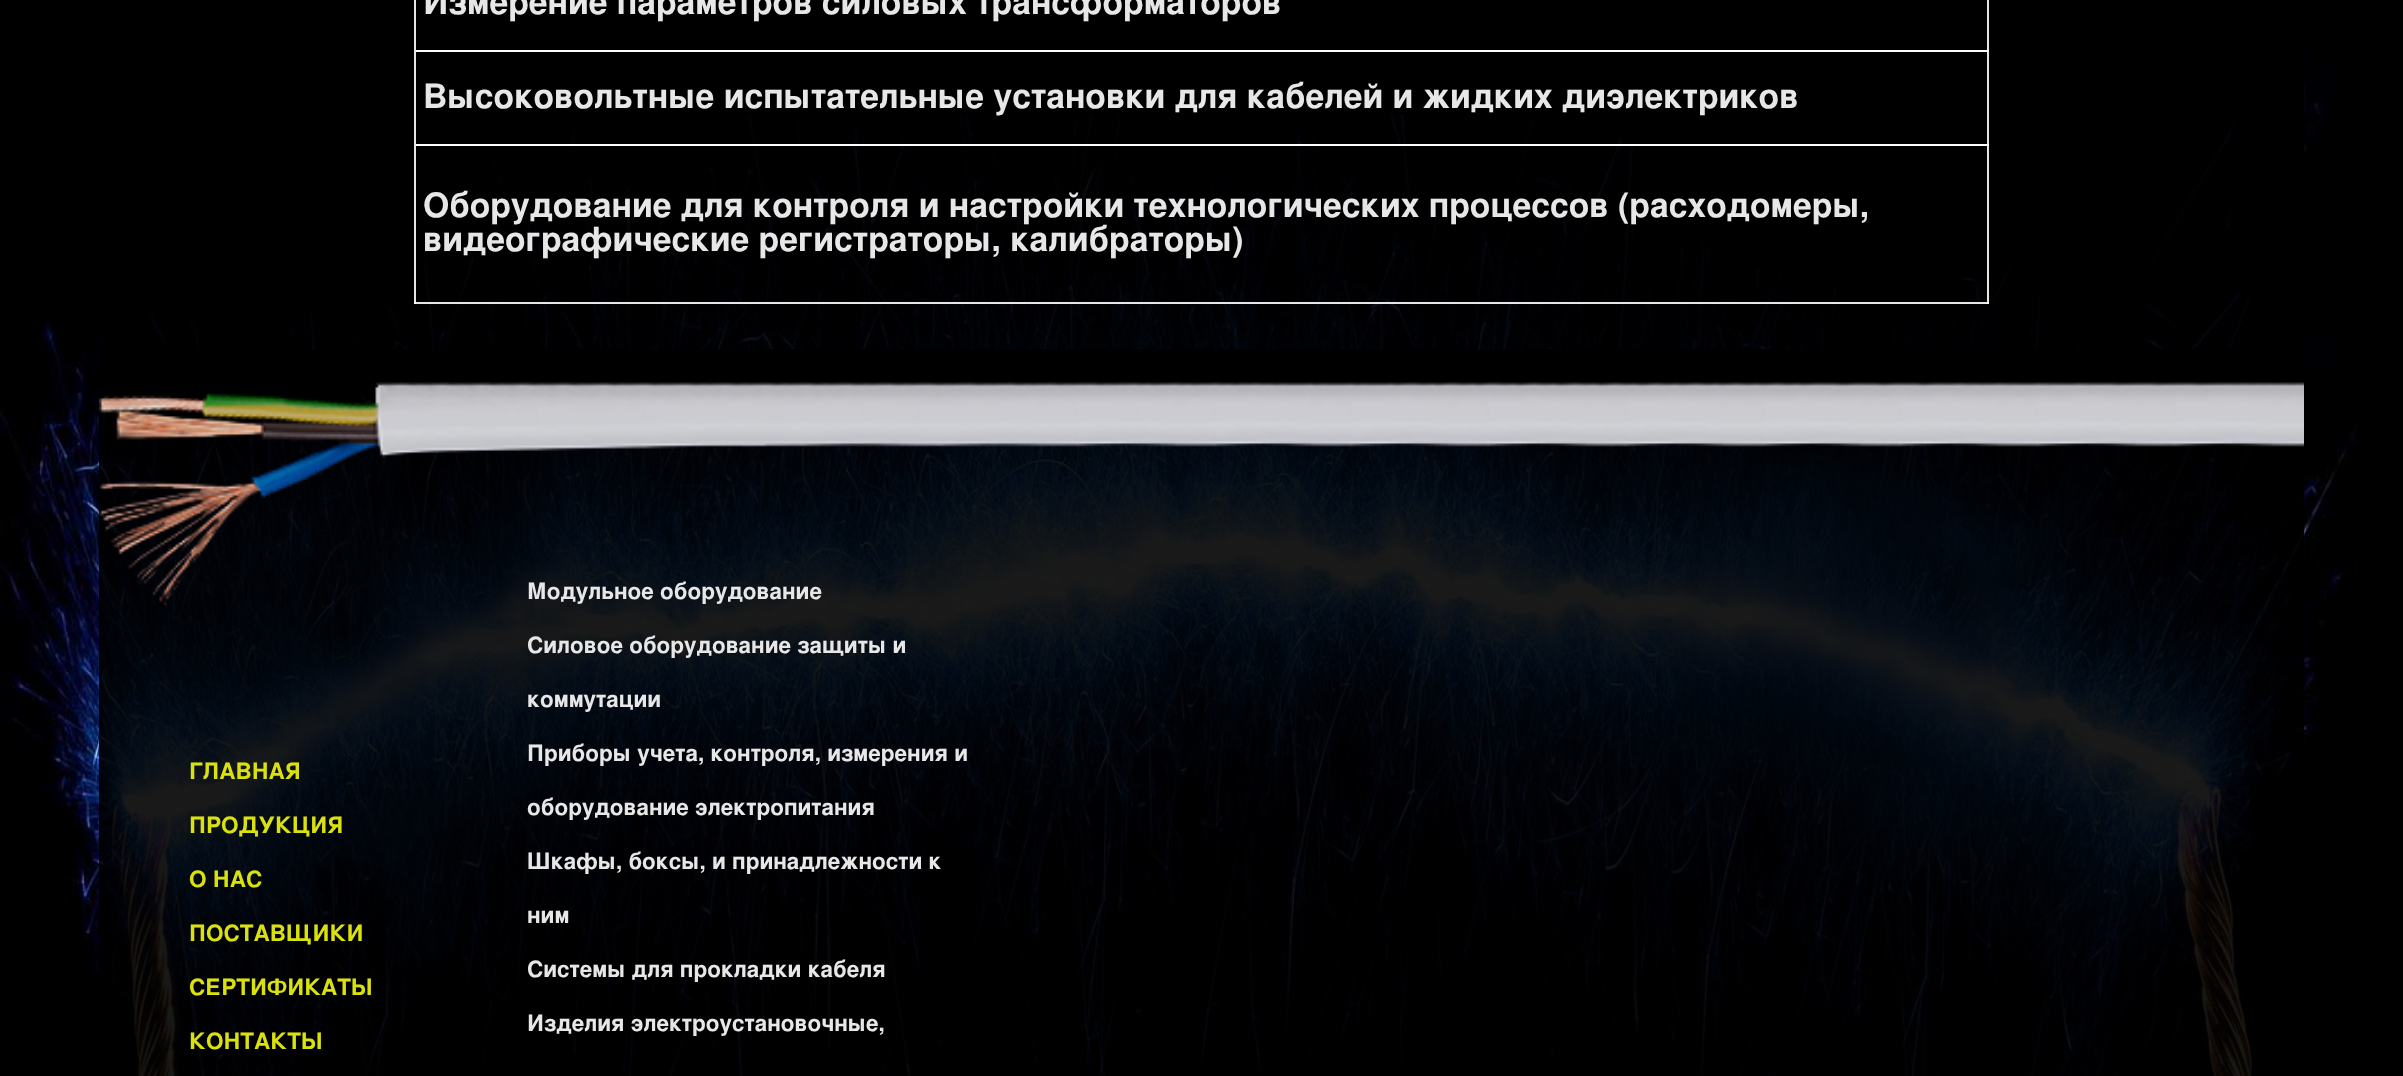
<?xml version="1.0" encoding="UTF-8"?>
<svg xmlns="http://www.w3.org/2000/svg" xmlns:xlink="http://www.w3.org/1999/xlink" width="2403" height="1076">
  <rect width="100%" height="100%" fill="#000000" />
  <image x="0" y="0" width="2357" height="1076" xlink:href="image1.png" />
  <rect x="731" width="1512" height="115" fill="#000000" fill-opacity="0.9" />
  <rect x="414" y="144" width="1575" height="2" fill="#ffffff" fill-opacity="0.9" />
  <rect x="1987" y="144" width="2" height="160" fill="#ffffff" fill-opacity="0.9" />
  <rect x="1987" width="2" height="146" fill="#e6e6e6" />
  <rect x="414" y="302" width="1575" height="2" fill="#ffffff" fill-opacity="0.9" />
  <rect x="414" y="144" width="2" height="160" fill="#ffffff" fill-opacity="0.9" />
  <rect x="414" y="144" width="1575" height="2" fill="#ffffff" fill-opacity="0.9" />
  <rect x="414" y="50" width="2" height="96" fill="#e6e6e6" />
  <rect x="414" y="50" width="1575" height="2" fill="#fdfdfd" />
  <rect x="414" width="2" height="52" fill="#e6e6e6" />
  <image x="99" y="349" width="2205" height="257" xlink:href="image2.png" />
  <text x="423" y="14" style="font-family: FreeSans; font-size: 33.75px; font-weight: bold; fill: #e7e7e8">Измерение параметров силовых трансформаторов</text>
  <text x="423" y="108" style="font-family: FreeSans; font-size: 33.75px; font-weight: bold; fill: #e7e7e8">Высоковольтные испытательные установки для кабелей и жидких диэлектриков</text>
  <text x="423" y="217" style="font-family: FreeSans; font-size: 33.75px; font-weight: bold; fill: #e7e7e8">Оборудование для контроля и настройки технологических процессов (расходомеры,</text>
  <text x="423" y="251" style="font-family: FreeSans; font-size: 33.75px; font-weight: bold; fill: #e7e7e8">видеографические регистраторы, калибраторы)</text>
  <text x="189" y="779" style="font-family: FreeSans; font-size: 22.5px; font-weight: bold; fill: #dae10d">ГЛАВНАЯ</text>
  <text x="189" y="833" style="font-family: FreeSans; font-size: 22.5px; font-weight: bold; fill: #dae10d">ПРОДУКЦИЯ</text>
  <text x="189" y="887" style="font-family: FreeSans; font-size: 22.5px; font-weight: bold; fill: #dae10d">О НАС</text>
  <text x="189" y="941" style="font-family: FreeSans; font-size: 22.5px; font-weight: bold; fill: #dae10d">ПОСТАВЩИКИ</text>
  <text x="189" y="995" style="font-family: FreeSans; font-size: 22.5px; font-weight: bold; fill: #dae10d">СЕРТИФИКАТЫ</text>
  <text x="189" y="1049" style="font-family: FreeSans; font-size: 22.5px; font-weight: bold; fill: #dae10d">КОНТАКТЫ</text>
  <text x="527" y="599" style="font-family: FreeSans; font-size: 22.5px; font-weight: bold; fill: #e7e7e8">Модульное оборудование</text>
  <text x="527" y="653" style="font-family: FreeSans; font-size: 22.5px; font-weight: bold; fill: #e7e7e8">Силовое оборудование защиты и</text>
  <text x="527" y="707" style="font-family: FreeSans; font-size: 22.5px; font-weight: bold; fill: #e7e7e8">коммутации</text>
  <text x="527" y="761" style="font-family: FreeSans; font-size: 22.5px; font-weight: bold; fill: #e7e7e8">Приборы учета, контроля, измерения и</text>
  <text x="527" y="815" style="font-family: FreeSans; font-size: 22.5px; font-weight: bold; fill: #e7e7e8">оборудование электропитания</text>
  <text x="527" y="869" style="font-family: FreeSans; font-size: 22.5px; font-weight: bold; fill: #e7e7e8">Шкафы, боксы, и принадлежности к</text>
  <text x="527" y="923" style="font-family: FreeSans; font-size: 22.5px; font-weight: bold; fill: #e7e7e8">ним</text>
  <text x="527" y="977" style="font-family: FreeSans; font-size: 22.5px; font-weight: bold; fill: #e7e7e8">Системы для прокладки кабеля</text>
  <text x="527" y="1031" style="font-family: FreeSans; font-size: 22.5px; font-weight: bold; fill: #e7e7e8">Изделия электроустановочные,</text>
</svg>
